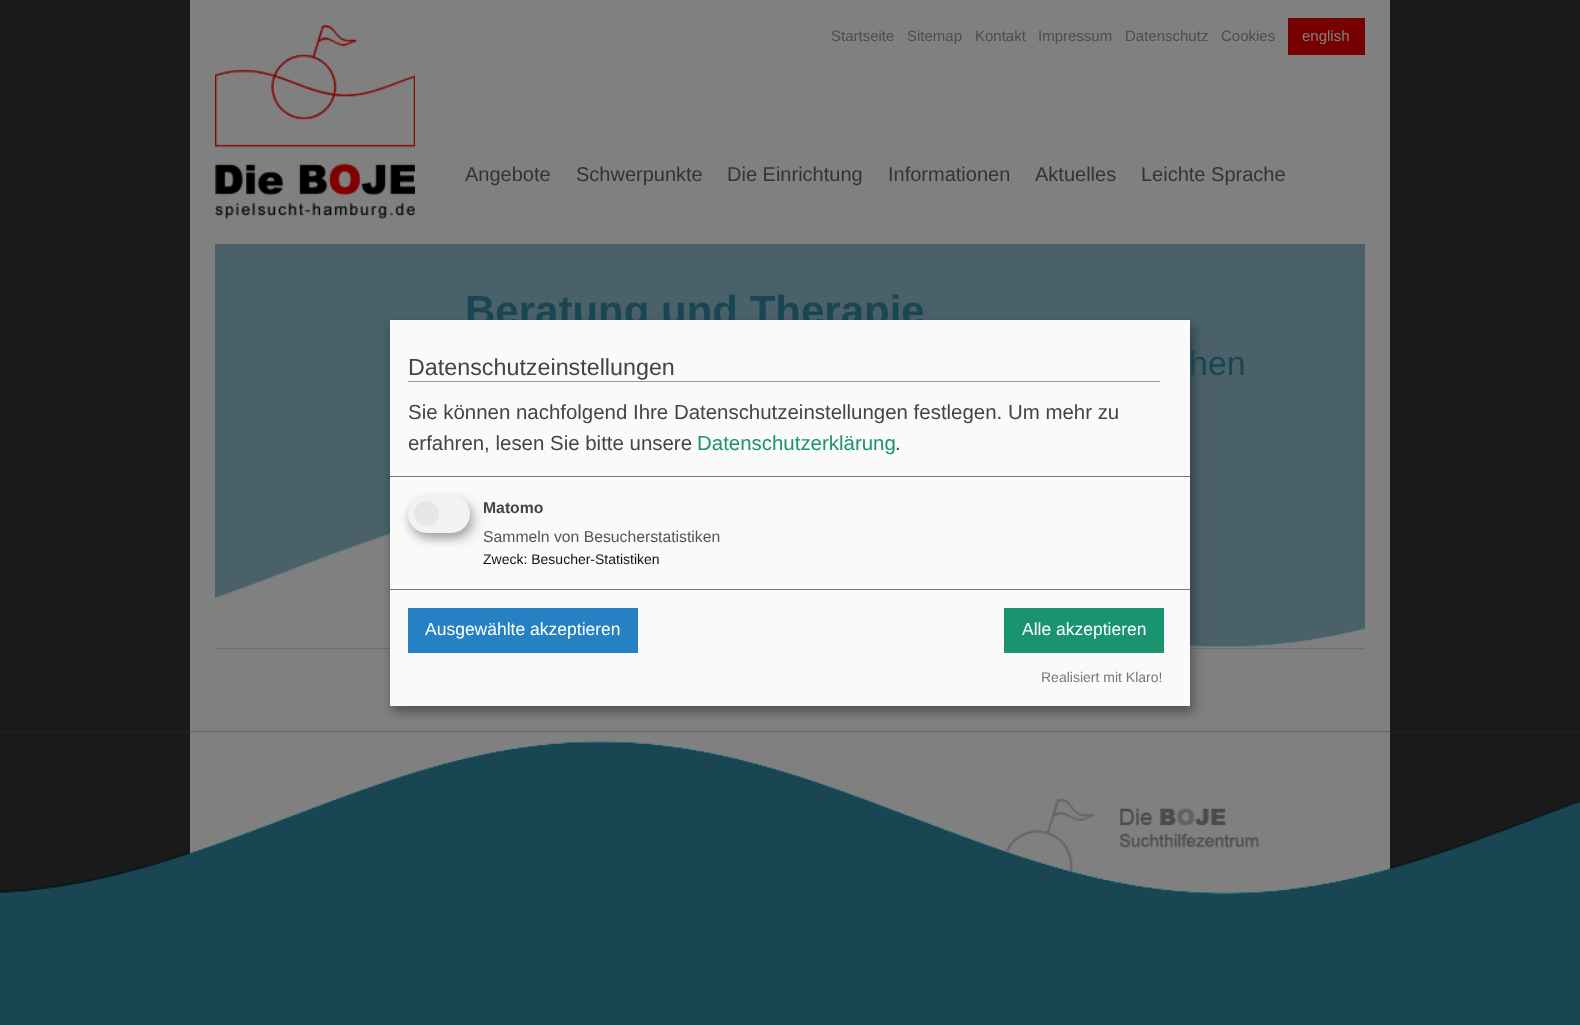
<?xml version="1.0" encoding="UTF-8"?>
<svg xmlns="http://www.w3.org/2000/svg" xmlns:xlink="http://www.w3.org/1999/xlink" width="1580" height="1025">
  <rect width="100%" height="100%" fill="#1a4553" />
  <rect width="1580" height="731" fill="#1a1a1a" />
  <rect x="190" width="1200" height="731" fill="#808080" />
  <image x="215" y="25" width="200" height="194" xlink:href="image1.png" />
  <rect x="1288" y="18" width="77" height="37" fill="#770000" />
  <rect x="215" y="244" width="1150" height="405" fill="#4b6169" />
  <image x="215" y="532" width="1150" height="117" xlink:href="image2.png" />
  <image x="0" y="731" width="1580" height="162" xlink:href="image3.png" />
  <rect x="190" y="731" width="1200" height="162" fill="#1a4553" />
  <image x="190" y="731" width="1200" height="163" xlink:href="image4.png" />
  <rect x="396" y="326" width="800" height="387" fill="#000000" fill-opacity="0.19" filter="blur(6px)" />
  <rect x="390" y="325" width="800" height="386" fill="#000000" fill-opacity="0.2" filter="blur(4px)" />
  <image x="1005" y="798" width="254" height="74" xlink:href="image5.png" />
  <text x="831" y="41" style="font-family: Liberation Sans; font-size: 15px; fill: #4d4d4d">Startseite</text>
  <text x="907" y="41" style="font-family: Liberation Sans; font-size: 15px; fill: #4d4d4d">Sitemap</text>
  <text x="975" y="41" style="font-family: Liberation Sans; font-size: 15px; fill: #4d4d4d">Kontakt</text>
  <text x="1038" y="41" style="font-family: Liberation Sans; font-size: 15px; fill: #4d4d4d">Impressum</text>
  <text x="1125" y="41" style="font-family: Liberation Sans; font-size: 15px; fill: #4d4d4d">Datenschutz</text>
  <text x="1221" y="41" style="font-family: Liberation Sans; font-size: 15px; fill: #4d4d4d">Cookies</text>
  <text x="1302" y="41" style="font-family: Liberation Sans; font-size: 15px; fill: #808080">english</text>
  <text x="465" y="181" style="font-family: Liberation Sans; font-size: 20px; fill: #333333">Angebote</text>
  <text x="576" y="181" style="font-family: Liberation Sans; font-size: 20px; fill: #333333">Schwerpunkte</text>
  <text x="727" y="181" style="font-family: Liberation Sans; font-size: 20px; fill: #333333">Die Einrichtung</text>
  <text x="888" y="181" style="font-family: Liberation Sans; font-size: 20px; fill: #333333">Informationen</text>
  <text x="1035" y="181" style="font-family: Liberation Sans; font-size: 20px; fill: #333333">Aktuelles</text>
  <text x="1141" y="181" style="font-family: Liberation Sans; font-size: 20px; fill: #333333">Leichte Sprache</text>
  <text x="465" y="325" style="font-family: Liberation Sans; font-size: 42px; font-weight: bold; fill: #1a4553">Beratung und Therapie</text>
  <text x="1189" y="375" style="font-family: Liberation Sans; font-size: 34px; fill: #1a4553">hen</text>
  <rect x="390" y="320" width="800" height="386" fill="#fafafa" />
  <rect x="390" y="476" width="800" height="1" fill="#777777" />
  <rect x="408" y="381" width="752" height="1" fill="#999999" />
  <text x="408" y="375" style="font-family: Liberation Sans; font-size: 23.3px; fill: #444444">Datenschutzeinstellungen</text>
  <text x="408" y="419" style="font-family: Liberation Sans; font-size: 20.45px; fill: #444444">Sie können nachfolgend Ihre Datenschutzeinstellungen festlegen. Um mehr zu</text>
  <text x="408" y="450" style="font-family: Liberation Sans; font-size: 20.45px; fill: #444444">erfahren, lesen Sie bitte unsere</text>
  <text x="697" y="450" style="font-family: Liberation Sans; font-size: 20.45px; fill: #1a936f">Datenschutzerklärung</text>
  <text x="895" y="450" style="font-family: Liberation Sans; font-size: 20.45px; fill: #444444">.</text>
  <rect x="414" y="501" width="62" height="38" rx="19" fill="#000000" fill-opacity="0.19" filter="blur(6px)" />
  <rect x="408" y="500" width="62" height="38" rx="19" fill="#000000" fill-opacity="0.2" filter="blur(4px)" />
  <rect x="408" y="495" width="62" height="38" rx="19" fill="#f2f2f2" />
  <circle cx="426.5" cy="513.5" r="12.5" fill="#e6e6e6" />
  <text x="483" y="513" style="font-family: Liberation Sans; font-size: 15.75px; font-weight: bold; fill: #444444">Matomo</text>
  <text x="483" y="542" style="font-family: Liberation Sans; font-size: 15.75px; fill: #555555">Sammeln von Besucherstatistiken</text>
  <text x="483" y="564" style="font-family: Liberation Sans; font-size: 14px; fill: #111111">Zweck: Besucher-Statistiken</text>
  <rect x="390" y="589" width="800" height="1" fill="#777777" />
  <rect x="408" y="608" width="230" height="45" fill="#2581c4" />
  <text x="425" y="635" style="font-family: Liberation Sans; font-size: 17.5px; fill: #ffffff">Ausgewählte akzeptieren</text>
  <rect x="1004" y="608" width="160" height="45" fill="#1a936f" />
  <text x="1022" y="635" style="font-family: Liberation Sans; font-size: 17.5px; fill: #ffffff">Alle akzeptieren</text>
  <text x="1041" y="682" style="font-family: Liberation Sans; font-size: 14px; fill: #777777">Realisiert mit Klaro!</text>
</svg>
